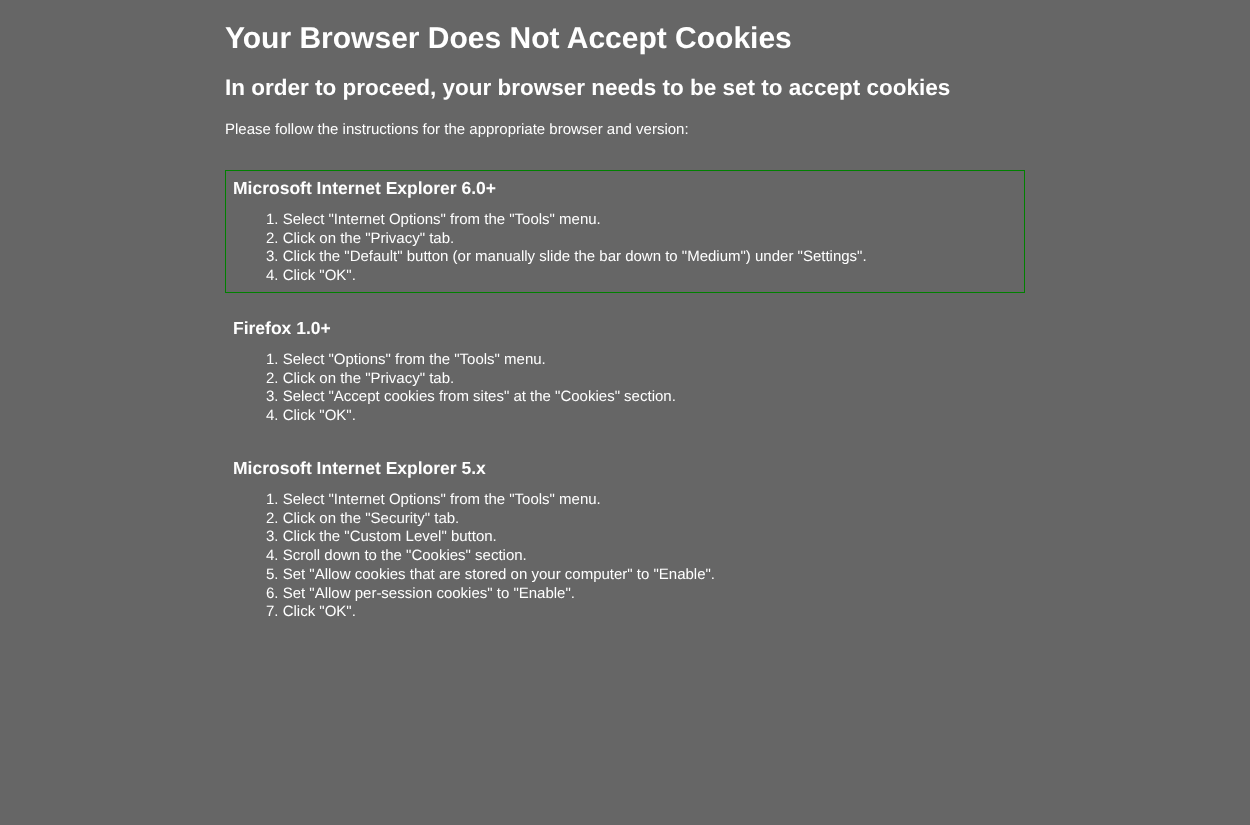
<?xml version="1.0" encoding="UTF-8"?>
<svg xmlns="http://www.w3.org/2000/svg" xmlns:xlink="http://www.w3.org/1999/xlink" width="1250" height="825">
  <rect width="100%" height="100%" fill="#666666" />
  <rect x="225.5" y="170.5" width="799" height="122" fill="none" stroke="#008000" />
  <text x="225" y="48" style="font-family: Liberation Sans; font-size: 30px; font-weight: bold; fill: #ffffff">Your Browser Does Not Accept Cookies</text>
  <text x="225" y="95" style="font-family: Liberation Sans; font-size: 22.5px; font-weight: bold; fill: #ffffff">In order to proceed, your browser needs to be set to accept cookies</text>
  <text x="225" y="134" style="font-family: Liberation Sans; font-size: 15px; fill: #ffffff">Please follow the instructions for the appropriate browser and version:</text>
  <text x="233" y="194" style="font-family: Liberation Sans; font-size: 17.5px; font-weight: bold; fill: #ffffff">Microsoft Internet Explorer 6.0+</text>
  <text x="266" y="224" style="font-family: Liberation Sans; font-size: 15px; fill: #ffffff">1. Select "Internet Options" from the "Tools" menu.</text>
  <text x="266" y="243" style="font-family: Liberation Sans; font-size: 15px; fill: #ffffff">2. Click on the "Privacy" tab.</text>
  <text x="266" y="261" style="font-family: Liberation Sans; font-size: 15px; fill: #ffffff">3. Click the "Default" button (or manually slide the bar down to "Medium") under "Settings".</text>
  <text x="266" y="280" style="font-family: Liberation Sans; font-size: 15px; fill: #ffffff">4. Click "OK".</text>
  <text x="233" y="334" style="font-family: Liberation Sans; font-size: 17.5px; font-weight: bold; fill: #ffffff">Firefox 1.0+</text>
  <text x="266" y="364" style="font-family: Liberation Sans; font-size: 15px; fill: #ffffff">1. Select "Options" from the "Tools" menu.</text>
  <text x="266" y="383" style="font-family: Liberation Sans; font-size: 15px; fill: #ffffff">2. Click on the "Privacy" tab.</text>
  <text x="266" y="401" style="font-family: Liberation Sans; font-size: 15px; fill: #ffffff">3. Select "Accept cookies from sites" at the "Cookies" section.</text>
  <text x="266" y="420" style="font-family: Liberation Sans; font-size: 15px; fill: #ffffff">4. Click "OK".</text>
  <text x="233" y="474" style="font-family: Liberation Sans; font-size: 17.5px; font-weight: bold; fill: #ffffff">Microsoft Internet Explorer 5.x</text>
  <text x="266" y="504" style="font-family: Liberation Sans; font-size: 15px; fill: #ffffff">1. Select "Internet Options" from the "Tools" menu.</text>
  <text x="266" y="523" style="font-family: Liberation Sans; font-size: 15px; fill: #ffffff">2. Click on the "Security" tab.</text>
  <text x="266" y="541" style="font-family: Liberation Sans; font-size: 15px; fill: #ffffff">3. Click the "Custom Level" button.</text>
  <text x="266" y="560" style="font-family: Liberation Sans; font-size: 15px; fill: #ffffff">4. Scroll down to the "Cookies" section.</text>
  <text x="266" y="579" style="font-family: Liberation Sans; font-size: 15px; fill: #ffffff">5. Set "Allow cookies that are stored on your computer" to "Enable".</text>
  <text x="266" y="598" style="font-family: Liberation Sans; font-size: 15px; fill: #ffffff">6. Set "Allow per-session cookies" to "Enable".</text>
  <text x="266" y="616" style="font-family: Liberation Sans; font-size: 15px; fill: #ffffff">7. Click "OK".</text>
</svg>
